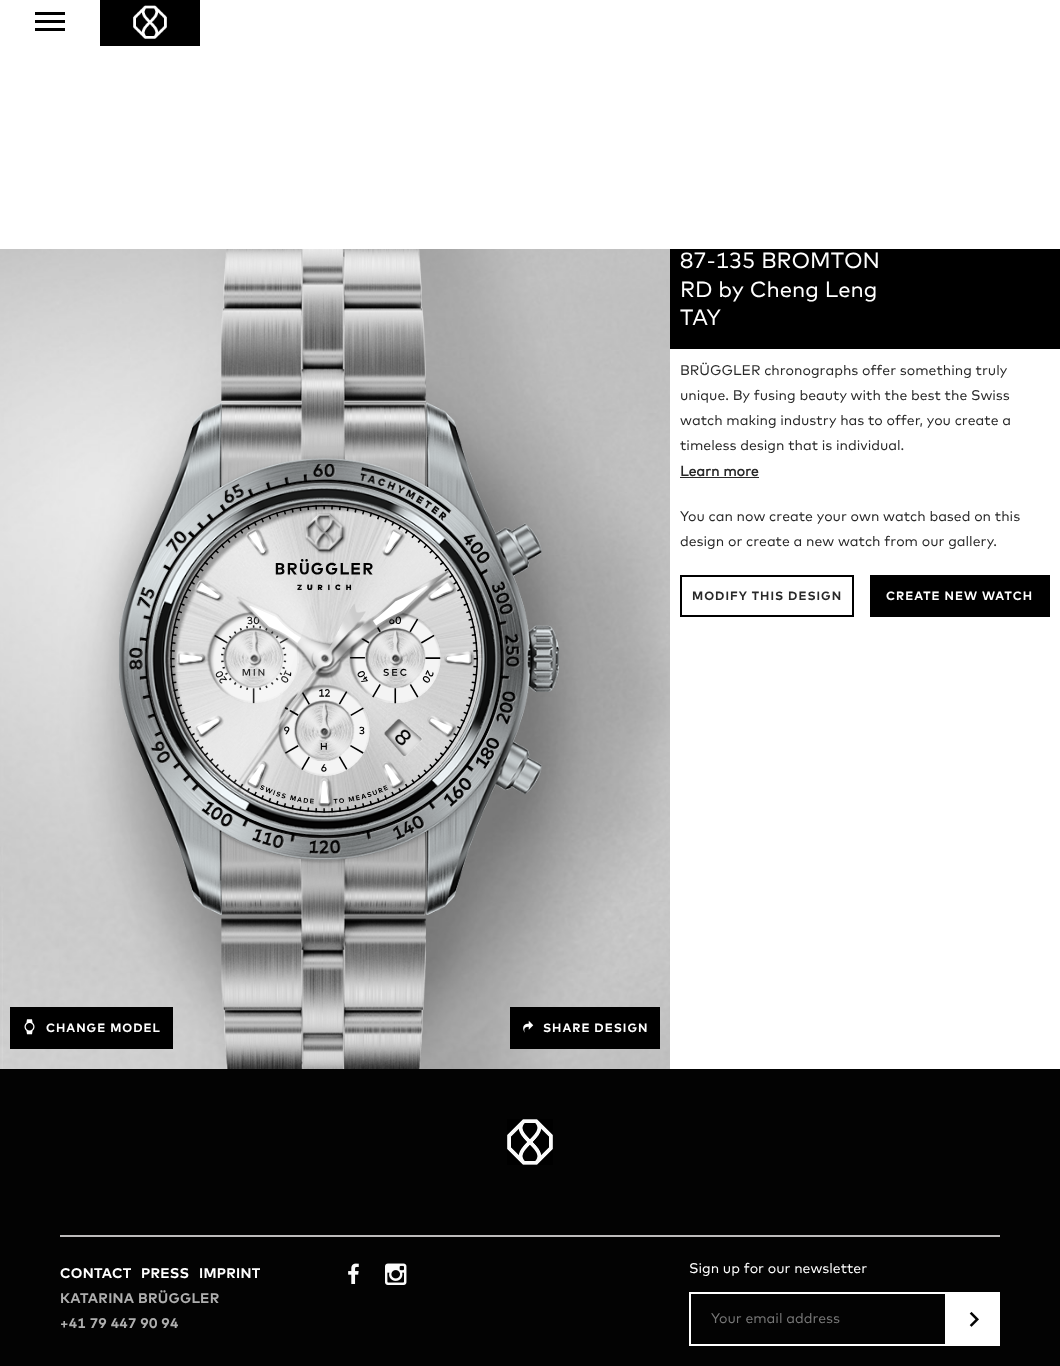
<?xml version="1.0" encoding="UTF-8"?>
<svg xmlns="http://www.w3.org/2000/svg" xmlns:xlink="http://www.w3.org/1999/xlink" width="1060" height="1366">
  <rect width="100%" height="100%" fill="#ffffff" />
  <rect x="35" y="12" width="30" height="3" fill="#000000" />
  <rect x="35" y="20" width="30" height="3" fill="#000000" />
  <rect x="35" y="28" width="30" height="3" fill="#000000" />
  <rect x="100" width="100" height="46" fill="#000000" />
  <image x="133" y="5" width="34" height="34" xlink:href="image1.png" />
  <rect x="670" y="249" width="390" height="100" fill="#000000" />
  <rect x="680" y="477" width="79" height="1" fill="#292929" />
  <rect x="681" y="576" width="172" height="40" fill="none" stroke="#000000" stroke-width="2" />
  <rect x="870" y="575" width="180" height="42" fill="#000000" />
  <image x="0" y="249" width="670" height="820" xlink:href="image2.png" />
  <image x="119" y="249" width="440" height="820" xlink:href="image3.png" />
  <rect x="10" y="1007" width="163" height="42" fill="#000000" />
  <image x="24" y="1019" width="11" height="16" xlink:href="image4.png" />
  <rect x="510" y="1007" width="150" height="42" fill="#000000" />
  <image x="523" y="1020" width="11" height="13" xlink:href="image5.png" />
  <rect y="1069" width="1060" height="297" fill="#030303" />
  <image x="507" y="1119" width="46" height="46" xlink:href="image6.png" />
  <rect x="60" y="1235" width="940" height="2" fill="#bdbbbb" />
  <image x="348" y="1263" width="11" height="21" xlink:href="image7.png" />
  <image x="385" y="1263" width="22" height="22" xlink:href="image8.png" />
  <rect x="690" y="1293" width="256" height="52" fill="none" stroke="#ffffff" stroke-width="2" />
  <rect x="947" y="1292" width="53" height="54" fill="#ffffff" />
  <image x="969" y="1311" width="10" height="16" xlink:href="image9.png" />
  <text x="680" y="268" style="font-family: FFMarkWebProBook; font-size: 22px; fill: #ffffff">87-135 BROMTON</text>
  <text x="680" y="297" style="font-family: FFMarkWebProBook; font-size: 22px; fill: #ffffff">RD by Cheng Leng</text>
  <text x="680" y="325" style="font-family: FFMarkWebProBook; font-size: 22px; fill: #ffffff">TAY</text>
  <text x="680" y="375" style="font-family: FFMarkWebProBook; font-size: 14px; fill: #292929">BRÜGGLER chronographs offer something truly</text>
  <text x="680" y="400" style="font-family: FFMarkWebProBook; font-size: 14px; fill: #292929">unique. By fusing beauty with the best the Swiss</text>
  <text x="680" y="425" style="font-family: FFMarkWebProBook; font-size: 14px; fill: #292929">watch making industry has to offer, you create a</text>
  <text x="680" y="450" style="font-family: FFMarkWebProBook; font-size: 14px; fill: #292929">timeless design that is individual.</text>
  <text x="680" y="476" style="font-family: FFMarkWebProBook; font-size: 14px; font-weight: bold; fill: #292929">Learn more</text>
  <text x="680" y="521" style="font-family: FFMarkWebProBook; font-size: 14px; fill: #292929">You can now create your own watch based on this</text>
  <text x="680" y="546" style="font-family: FFMarkWebProBook; font-size: 14px; fill: #292929">design or create a new watch from our gallery.</text>
  <text x="692" y="600" style="font-family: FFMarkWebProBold; font-size: 12px; letter-spacing: 1px; fill: #292929">MODIFY THIS DESIGN</text>
  <text x="886" y="600" style="font-family: FFMarkWebProBold; font-size: 12px; letter-spacing: 1px; fill: #ffffff">CREATE NEW WATCH</text>
  <text x="46" y="1032" style="font-family: FFMarkWebProBold; font-size: 12px; letter-spacing: 1px; fill: #ffffff">CHANGE MODEL</text>
  <text x="543" y="1032" style="font-family: FFMarkWebProBold; font-size: 12px; letter-spacing: 1px; fill: #ffffff">SHARE DESIGN</text>
  <text x="60" y="1278" style="font-family: FFMarkWebProBold; font-size: 14px; letter-spacing: 0.25px; fill: #ffffff">CONTACT</text>
  <text x="141" y="1278" style="font-family: FFMarkWebProBold; font-size: 14px; letter-spacing: 0.25px; fill: #ffffff">PRESS</text>
  <text x="199" y="1278" style="font-family: FFMarkWebProBold; font-size: 14px; letter-spacing: 0.25px; fill: #ffffff">IMPRINT</text>
  <text x="60" y="1303" style="font-family: FFMarkWebProBold; font-size: 14px; letter-spacing: 0.25px; fill: #aeaeae">KATARINA BRÜGGLER</text>
  <text x="60" y="1328" style="font-family: FFMarkWebProBold; font-size: 14px; letter-spacing: 0.25px; fill: #aeaeae">+41 79 447 90 94</text>
  <text x="689" y="1273" style="font-family: FFMarkWebProBook; font-size: 14px; fill: #ffffff">Sign up for our newsletter</text>
  <text x="711" y="1323" style="font-family: FFMarkWebProBook; font-size: 14px; fill: #767676">Your email address</text>
</svg>
